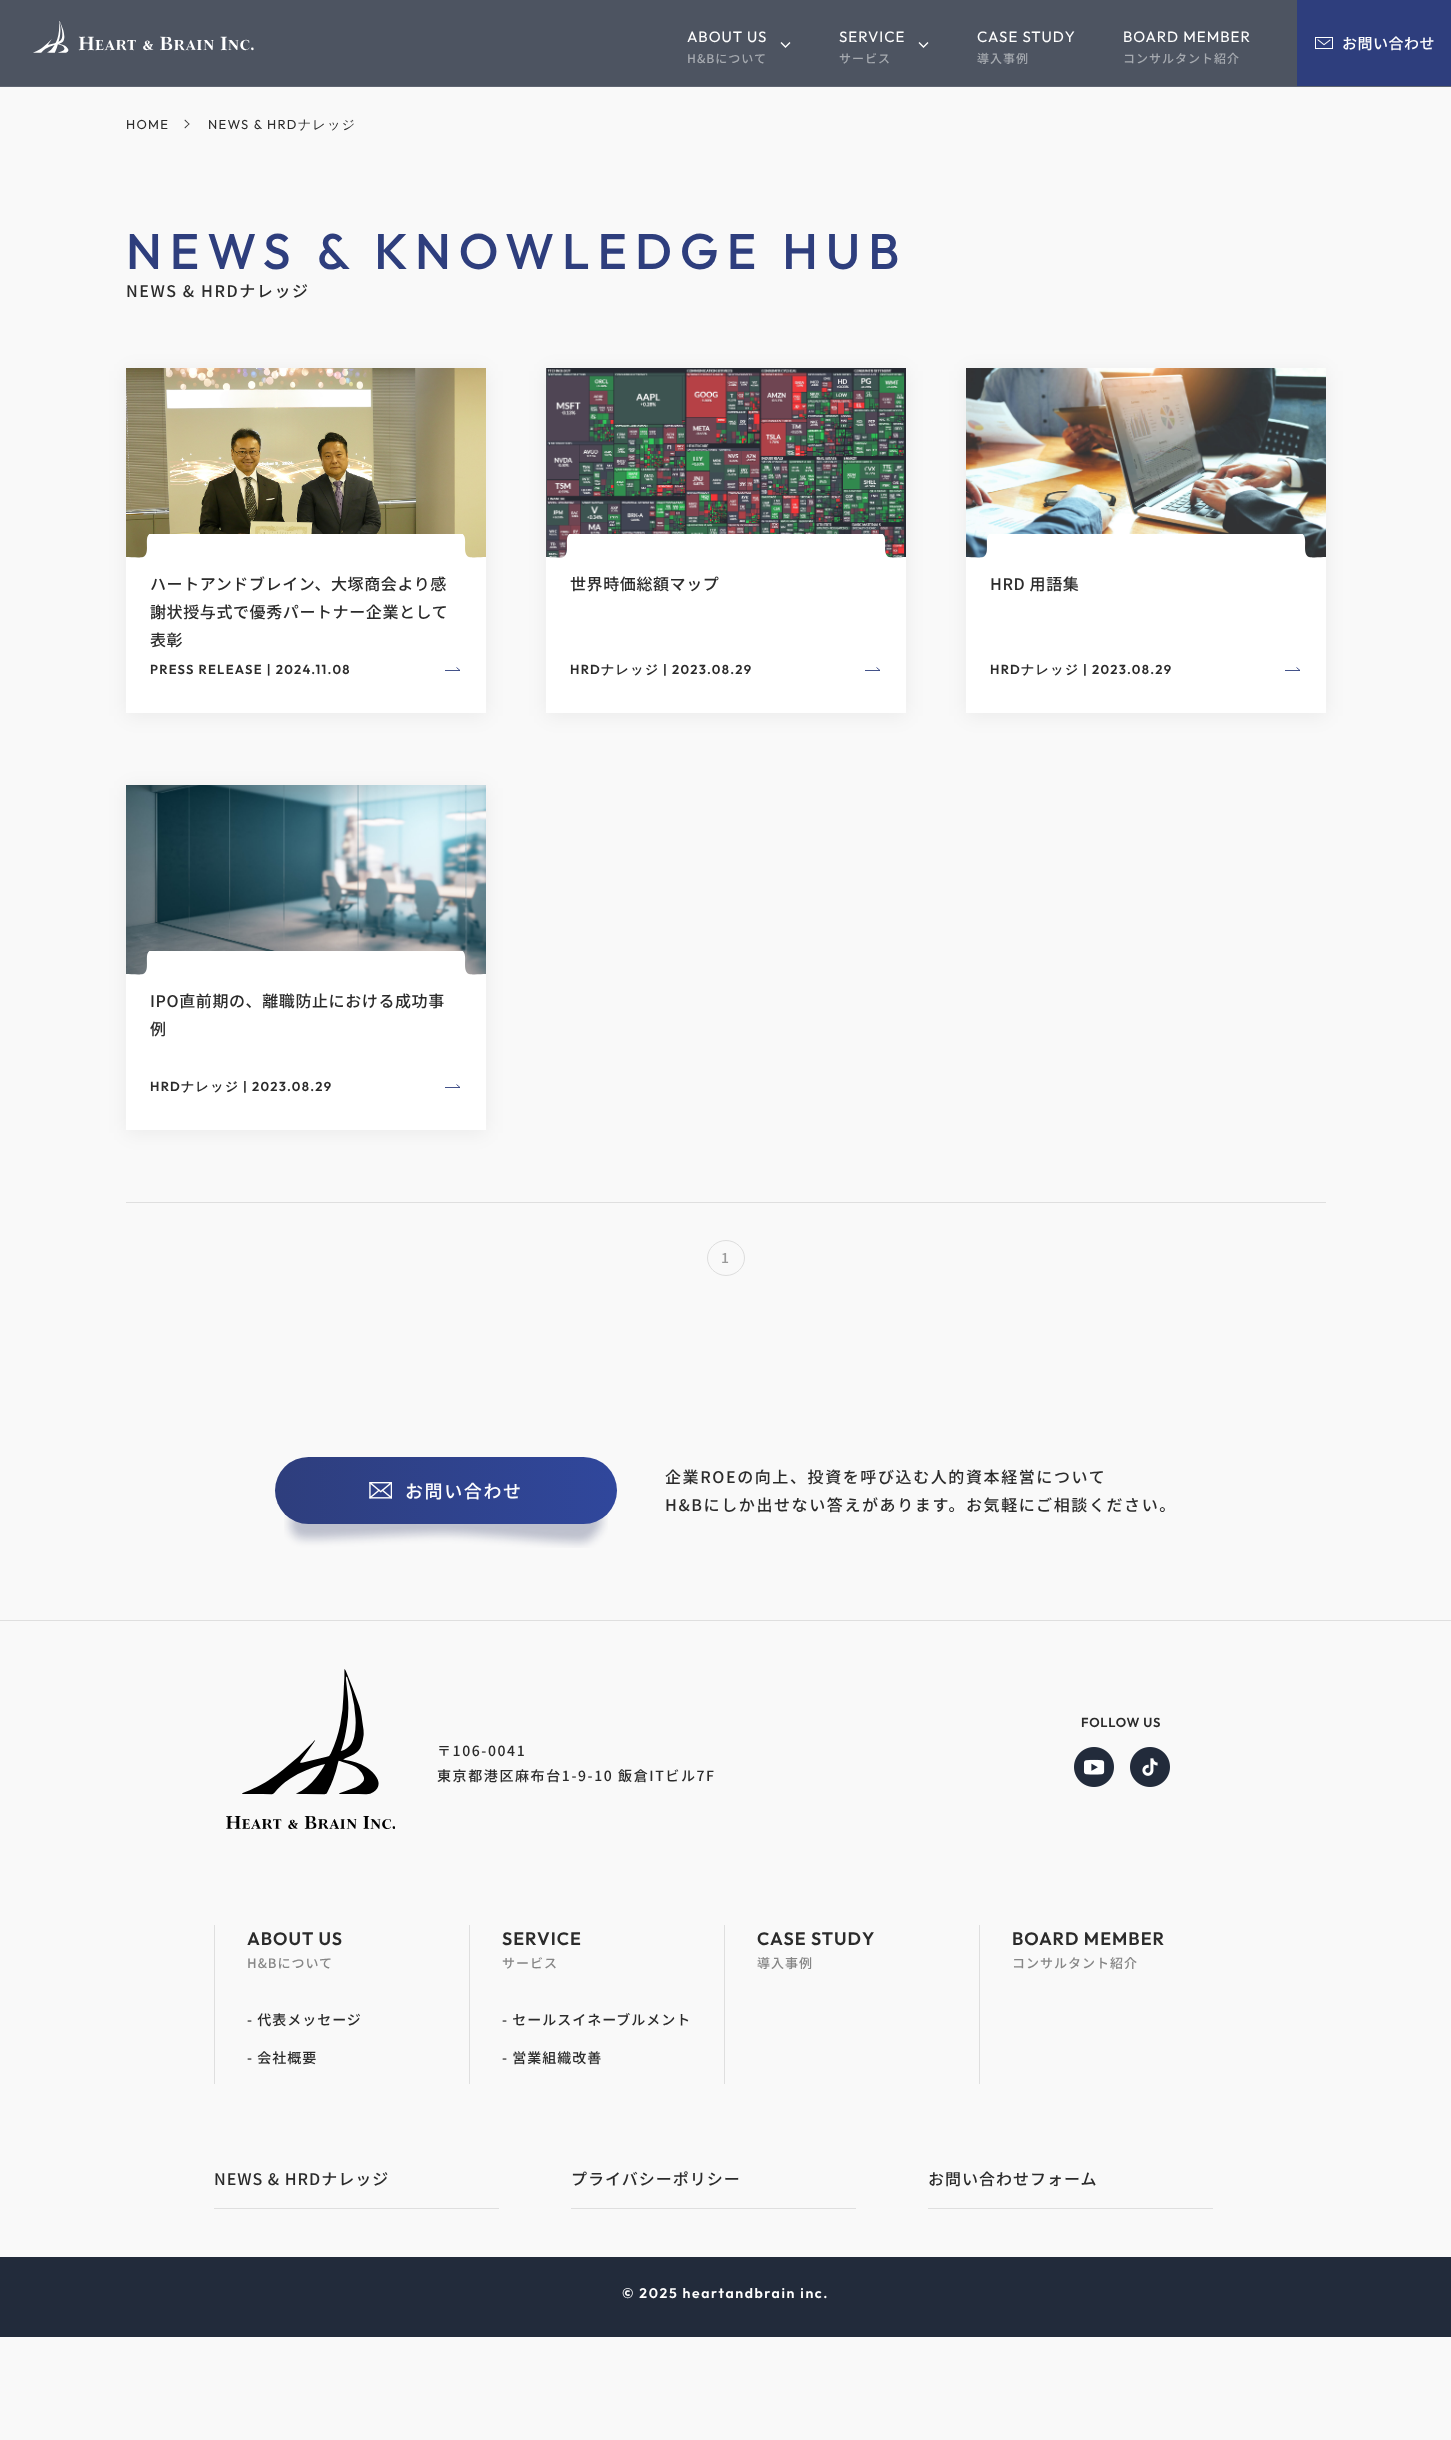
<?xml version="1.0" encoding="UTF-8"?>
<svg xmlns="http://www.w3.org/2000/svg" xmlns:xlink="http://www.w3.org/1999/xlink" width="1451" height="2440">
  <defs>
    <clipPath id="clip1"><rect x="126" y="534" width="360" height="36" /></clipPath>
    <clipPath id="clip2"><rect x="546" y="534" width="360" height="36" /></clipPath>
    <clipPath id="clip3"><rect x="966" y="534" width="360" height="36" /></clipPath>
    <clipPath id="clip4"><rect x="126" y="951" width="360" height="36" /></clipPath>
    <linearGradient id="g1" gradientUnits="userSpaceOnUse" x1="275" y1="1491" x2="617" y2="1491"><stop offset="0" stop-color="#2e3e7d" /><stop offset="1" stop-color="#30479c" /></linearGradient>
  </defs>
  <rect width="100%" height="100%" fill="#f9f9f9" />
  <rect width="1297" height="86" fill="#4d5461" />
  <rect y="86" width="1451" height="1" fill="#5f6571" />
  <image x="33" y="21" width="221" height="32" xlink:href="image1.png" />
  <path d="M 781 42.5 l 4.5 4.5 l 4.5 -4.5" fill="none" stroke="#ffffff" stroke-width="1.4" />
  <path d="M 919 42.5 l 4.5 4.5 l 4.5 -4.5" fill="none" stroke="#ffffff" stroke-width="1.4" />
  <rect x="1297" width="154" height="86" fill="#2e3e7d" />
  <image x="1315" y="37" width="18" height="12" xlink:href="image2.png" />
  <path d="M 185 119.5 l 4.5 4.5 l -0.5 0.5 l -4.5 -4 z" fill="#333333" />
  <path d="M 189 123.5 l 0.5 0.5 l -4.5 4.5 l -0.5 -1 z" fill="#333333" />
  <rect x="126" y="1202" width="1200" height="1" fill="#dfdfdf" />
  <rect x="126" y="371" width="360" height="345" fill="#000000" fill-opacity="0.06" filter="blur(10px)" />
  <image x="126" y="368" width="360" height="190" xlink:href="image3.png" />
  <rect x="126" y="569" width="360" height="144" fill="#ffffff" />
  <g clip-path="url(#clip1)">
    <path d="M 459 569 h -333 v -12 c 4 0 14 1 17 0 c 9 -4 -2 -24 10 -24 h 306 c 12 0 1 20 10 24 c 4 1 13 0 17 0 v 12 z" fill="#ffffff" />
  </g>
  <path d="M 445 670.5 h 15 l -3.5 -3" fill="none" stroke="#2e3e7d" stroke-width="0.9" />
  <rect x="546" y="371" width="360" height="345" fill="#000000" fill-opacity="0.06" filter="blur(10px)" />
  <image x="546" y="368" width="360" height="190" xlink:href="image4.png" />
  <rect x="546" y="569" width="360" height="144" fill="#ffffff" />
  <g clip-path="url(#clip2)">
    <path d="M 879 569 h -333 v -12 c 4 0 14 1 17 0 c 9 -4 -2 -24 10 -24 h 306 c 12 0 1 20 10 24 c 4 1 13 0 17 0 v 12 z" fill="#ffffff" />
  </g>
  <path d="M 865 670.5 h 15 l -3.5 -3" fill="none" stroke="#2e3e7d" stroke-width="0.9" />
  <rect x="966" y="371" width="360" height="345" fill="#000000" fill-opacity="0.06" filter="blur(10px)" />
  <image x="966" y="368" width="360" height="190" xlink:href="image5.png" />
  <rect x="966" y="569" width="360" height="144" fill="#ffffff" />
  <g clip-path="url(#clip3)">
    <path d="M 1299 569 h -333 v -12 c 4 0 14 1 17 0 c 9 -4 -2 -24 10 -24 h 306 c 12 0 1 20 10 24 c 4 1 13 0 17 0 v 12 z" fill="#ffffff" />
  </g>
  <path d="M 1285 670.5 h 15 l -3.5 -3" fill="none" stroke="#2e3e7d" stroke-width="0.9" />
  <rect x="126" y="788" width="360" height="345" fill="#000000" fill-opacity="0.06" filter="blur(10px)" />
  <image x="126" y="785" width="360" height="190" xlink:href="image6.png" />
  <rect x="126" y="986" width="360" height="144" fill="#ffffff" />
  <g clip-path="url(#clip4)">
    <path d="M 459 986 h -333 v -12 c 4 0 14 1 17 0 c 9 -4 -2 -24 10 -24 h 306 c 12 0 1 20 10 24 c 4 1 13 0 17 0 v 12 z" fill="#ffffff" />
  </g>
  <path d="M 445 1087.5 h 15 l -3.5 -3" fill="none" stroke="#2e3e7d" stroke-width="0.9" />
  <path d="M 726 1240.5 c 10 0 18.5 8 18.5 17.5 c 0 9.5 -8.5 17.5 -18.5 17.5 c -10 0 -18.5 -8 -18.5 -17.5 c 0 -9.5 8.5 -17.5 18.5 -17.5 z" fill="none" stroke="#dddddd" />
  <rect y="1620" width="1451" height="1" fill="#dfdfdf" />
  <image x="284" y="1514" width="324" height="34" xlink:href="image8.png" />
  <rect x="275" y="1457" width="342" height="67" rx="33.5" fill="url(#g1)" />
  <image x="369" y="1482" width="23" height="17" xlink:href="image7.png" />
  <image x="1074" y="1747" width="40" height="40" xlink:href="image9.png" />
  <image x="1130" y="1747" width="40" height="40" xlink:href="image10.png" />
  <image x="226" y="1669" width="169" height="160" xlink:href="image11.png" />
  <rect x="214" y="1925" width="1" height="159" fill="#dfdfdf" />
  <rect x="469" y="1925" width="1" height="159" fill="#dfdfdf" />
  <rect x="724" y="1925" width="1" height="159" fill="#dfdfdf" />
  <rect x="979" y="1925" width="1" height="159" fill="#dfdfdf" />
  <rect x="214" y="2208" width="285" height="1" fill="#dfdfdf" />
  <rect x="571" y="2208" width="285" height="1" fill="#dfdfdf" />
  <rect x="928" y="2208" width="285" height="1" fill="#dfdfdf" />
  <rect y="2257" width="1451" height="80" fill="#222b3b" />
  <text x="687" y="42" style="font-family: Outfit; font-size: 15px; letter-spacing: 1px; fill: #ffffff">ABOUT US</text>
  <text x="687" y="63" style="font-family: Noto Sans JP; font-size: 12px; font-weight: 500; letter-spacing: 1px; fill: #a6aab0">H&amp;Bについて</text>
  <text x="839" y="42" style="font-family: Outfit; font-size: 15px; letter-spacing: 1px; fill: #ffffff">SERVICE</text>
  <text x="839" y="63" style="font-family: Noto Sans JP; font-size: 12px; font-weight: 500; letter-spacing: 1px; fill: #a6aab0">サービス</text>
  <text x="977" y="42" style="font-family: Outfit; font-size: 15px; letter-spacing: 1px; fill: #ffffff">CASE STUDY</text>
  <text x="977" y="63" style="font-family: Noto Sans JP; font-size: 12px; font-weight: 500; letter-spacing: 1px; fill: #a6aab0">導入事例</text>
  <text x="1123" y="42" style="font-family: Outfit; font-size: 15px; letter-spacing: 1px; fill: #ffffff">BOARD MEMBER</text>
  <text x="1123" y="63" style="font-family: Noto Sans JP; font-size: 12px; font-weight: 500; letter-spacing: 1px; fill: #a6aab0">コンサルタント紹介</text>
  <text x="1342" y="49" style="font-family: Noto Sans JP; font-size: 15px; font-weight: 500; letter-spacing: 0.5px; fill: #ffffff">お問い合わせ</text>
  <text x="126" y="129" style="font-family: Outfit; font-size: 13px; letter-spacing: 1.3px; fill: #2b2b2b">HOME</text>
  <text x="208" y="129" style="font-family: Outfit; font-size: 13px; letter-spacing: 1.3px; fill: #2b2b2b">NEWS &amp; HRD</text>
  <text x="298" y="129" style="font-family: WenQuanYi Zen Hei; font-size: 13px; font-weight: 500; letter-spacing: 1.3px; fill: #2b2b2b">ナレッジ</text>
  <text x="126" y="269" style="font-family: Outfit; font-size: 50px; font-weight: 500; letter-spacing: 8px; fill: #2e3e7d">NEWS &amp; KNOWLEDGE HUB</text>
  <text x="126" y="297" style="font-family: Noto Sans JP; font-size: 16px; font-weight: 500; letter-spacing: 1.6px; fill: #2b2b2b">NEWS &amp; HRDナレッジ</text>
  <text x="150" y="590" style="font-family: Noto Sans JP; font-size: 16px; font-weight: 500; letter-spacing: 0.6px; fill: #2b2b2b">ハートアンドブレイン、大塚商会より感</text>
  <text x="150" y="618" style="font-family: Noto Sans JP; font-size: 16px; font-weight: 500; letter-spacing: 0.6px; fill: #2b2b2b">謝状授与式で優秀パートナー企業として</text>
  <text x="150" y="646" style="font-family: Noto Sans JP; font-size: 16px; font-weight: 500; letter-spacing: 0.6px; fill: #2b2b2b">表彰</text>
  <text x="150" y="674" style="font-family: Outfit; font-size: 13px; font-weight: 600; letter-spacing: 1.3px; fill: #2b2b2b">PRESS RELEASE | 2024.11.08</text>
  <text x="570" y="590" style="font-family: Noto Sans JP; font-size: 16px; font-weight: 500; letter-spacing: 0.6px; fill: #2b2b2b">世界時価総額マップ</text>
  <text x="570" y="674" style="font-family: Outfit; font-size: 13px; font-weight: 600; letter-spacing: 1.3px; fill: #2b2b2b">HRD</text>
  <text x="601" y="674" style="font-family: WenQuanYi Zen Hei; font-size: 13px; font-weight: bold; letter-spacing: 1.3px; fill: #2b2b2b">ナレッジ</text>
  <text x="663" y="674" style="font-family: Outfit; font-size: 13px; font-weight: 600; letter-spacing: 1.3px; fill: #2b2b2b">| 2023.08.29</text>
  <text x="990" y="590" style="font-family: Noto Sans JP; font-size: 16px; font-weight: 500; letter-spacing: 0.6px; fill: #2b2b2b">HRD 用語集</text>
  <text x="990" y="674" style="font-family: Outfit; font-size: 13px; font-weight: 600; letter-spacing: 1.3px; fill: #2b2b2b">HRD</text>
  <text x="1021" y="674" style="font-family: WenQuanYi Zen Hei; font-size: 13px; font-weight: bold; letter-spacing: 1.3px; fill: #2b2b2b">ナレッジ</text>
  <text x="1083" y="674" style="font-family: Outfit; font-size: 13px; font-weight: 600; letter-spacing: 1.3px; fill: #2b2b2b">| 2023.08.29</text>
  <text x="150" y="1007" style="font-family: Noto Sans JP; font-size: 16px; font-weight: 500; letter-spacing: 0.6px; fill: #2b2b2b">IPO直前期の、離職防止における成功事</text>
  <text x="150" y="1035" style="font-family: Noto Sans JP; font-size: 16px; font-weight: 500; letter-spacing: 0.6px; fill: #2b2b2b">例</text>
  <text x="150" y="1091" style="font-family: Outfit; font-size: 13px; font-weight: 600; letter-spacing: 1.3px; fill: #2b2b2b">HRD</text>
  <text x="181" y="1091" style="font-family: WenQuanYi Zen Hei; font-size: 13px; font-weight: bold; letter-spacing: 1.3px; fill: #2b2b2b">ナレッジ</text>
  <text x="243" y="1091" style="font-family: Outfit; font-size: 13px; font-weight: 600; letter-spacing: 1.3px; fill: #2b2b2b">| 2023.08.29</text>
  <text x="721" y="1263" style="font-family: Noto Sans JP; font-size: 14px; font-weight: 500; letter-spacing: 1.6px; fill: #999999">1</text>
  <text x="405" y="1498" style="font-family: Noto Sans JP; font-size: 18px; font-weight: 500; letter-spacing: 1.6px; fill: #ffffff">お問い合わせ</text>
  <text x="665" y="1483" style="font-family: Noto Sans JP; font-size: 16px; font-weight: 500; letter-spacing: 1.6px; fill: #2b2b2b">企業ROEの向上、投資を呼び込む人的資本経営について</text>
  <text x="665" y="1511" style="font-family: Noto Sans JP; font-size: 16px; font-weight: 500; letter-spacing: 1.6px; fill: #2b2b2b">H&amp;Bにしか出せない答えがあります。お気軽にご相談ください。</text>
  <text x="1081" y="1727" style="font-family: Outfit; font-size: 13px; font-weight: 600; letter-spacing: 0.75px; fill: #2b2b2b">FOLLOW US</text>
  <text x="437" y="1756" style="font-family: Noto Sans JP; font-size: 14px; font-weight: 500; letter-spacing: 1.6px; fill: #2b2b2b">〒106-0041</text>
  <text x="437" y="1781" style="font-family: Noto Sans JP; font-size: 14px; font-weight: 500; letter-spacing: 1.6px; fill: #2b2b2b">東京都港区麻布台1-9-10 飯倉ITビル7F</text>
  <text x="247" y="1945" style="font-family: Outfit; font-size: 18px; font-weight: 600; letter-spacing: 1px; fill: #2b2b2b">ABOUT US</text>
  <text x="247" y="1968" style="font-family: Noto Sans JP; font-size: 13px; font-weight: 500; letter-spacing: 1px; fill: #868686">H&amp;Bについて</text>
  <text x="247" y="2025" style="font-family: Noto Sans JP; font-size: 14px; font-weight: 500; letter-spacing: 1px; fill: #2b2b2b">- 代表メッセージ</text>
  <text x="247" y="2063" style="font-family: Noto Sans JP; font-size: 14px; font-weight: 500; letter-spacing: 1px; fill: #2b2b2b">- 会社概要</text>
  <text x="502" y="1945" style="font-family: Outfit; font-size: 18px; font-weight: 600; letter-spacing: 1px; fill: #2b2b2b">SERVICE</text>
  <text x="502" y="1968" style="font-family: Noto Sans JP; font-size: 13px; font-weight: 500; letter-spacing: 1px; fill: #868686">サービス</text>
  <text x="502" y="2025" style="font-family: Noto Sans JP; font-size: 14px; font-weight: 500; letter-spacing: 1px; fill: #2b2b2b">- セールスイネーブルメント</text>
  <text x="502" y="2063" style="font-family: Noto Sans JP; font-size: 14px; font-weight: 500; letter-spacing: 1px; fill: #2b2b2b">- 営業組織改善</text>
  <text x="757" y="1945" style="font-family: Outfit; font-size: 18px; font-weight: 600; letter-spacing: 1px; fill: #2b2b2b">CASE STUDY</text>
  <text x="757" y="1968" style="font-family: Noto Sans JP; font-size: 13px; font-weight: 500; letter-spacing: 1px; fill: #868686">導入事例</text>
  <text x="1012" y="1945" style="font-family: Outfit; font-size: 18px; font-weight: 600; letter-spacing: 1px; fill: #2b2b2b">BOARD MEMBER</text>
  <text x="1012" y="1968" style="font-family: Noto Sans JP; font-size: 13px; font-weight: 500; letter-spacing: 1px; fill: #868686">コンサルタント紹介</text>
  <text x="214" y="2185" style="font-family: Noto Sans JP; font-size: 16px; font-weight: 500; letter-spacing: 1px; fill: #2b2b2b">NEWS &amp; HRDナレッジ</text>
  <text x="571" y="2185" style="font-family: Noto Sans JP; font-size: 16px; font-weight: 500; letter-spacing: 1px; fill: #2b2b2b">プライバシーポリシー</text>
  <text x="928" y="2185" style="font-family: Noto Sans JP; font-size: 16px; font-weight: 500; letter-spacing: 1px; fill: #2b2b2b">お問い合わせフォーム</text>
  <text x="622" y="2298" style="font-family: Outfit; font-size: 14px; font-weight: 600; letter-spacing: 1.6px; fill: #ffffff">© 2025 heartandbrain inc.</text>
</svg>
